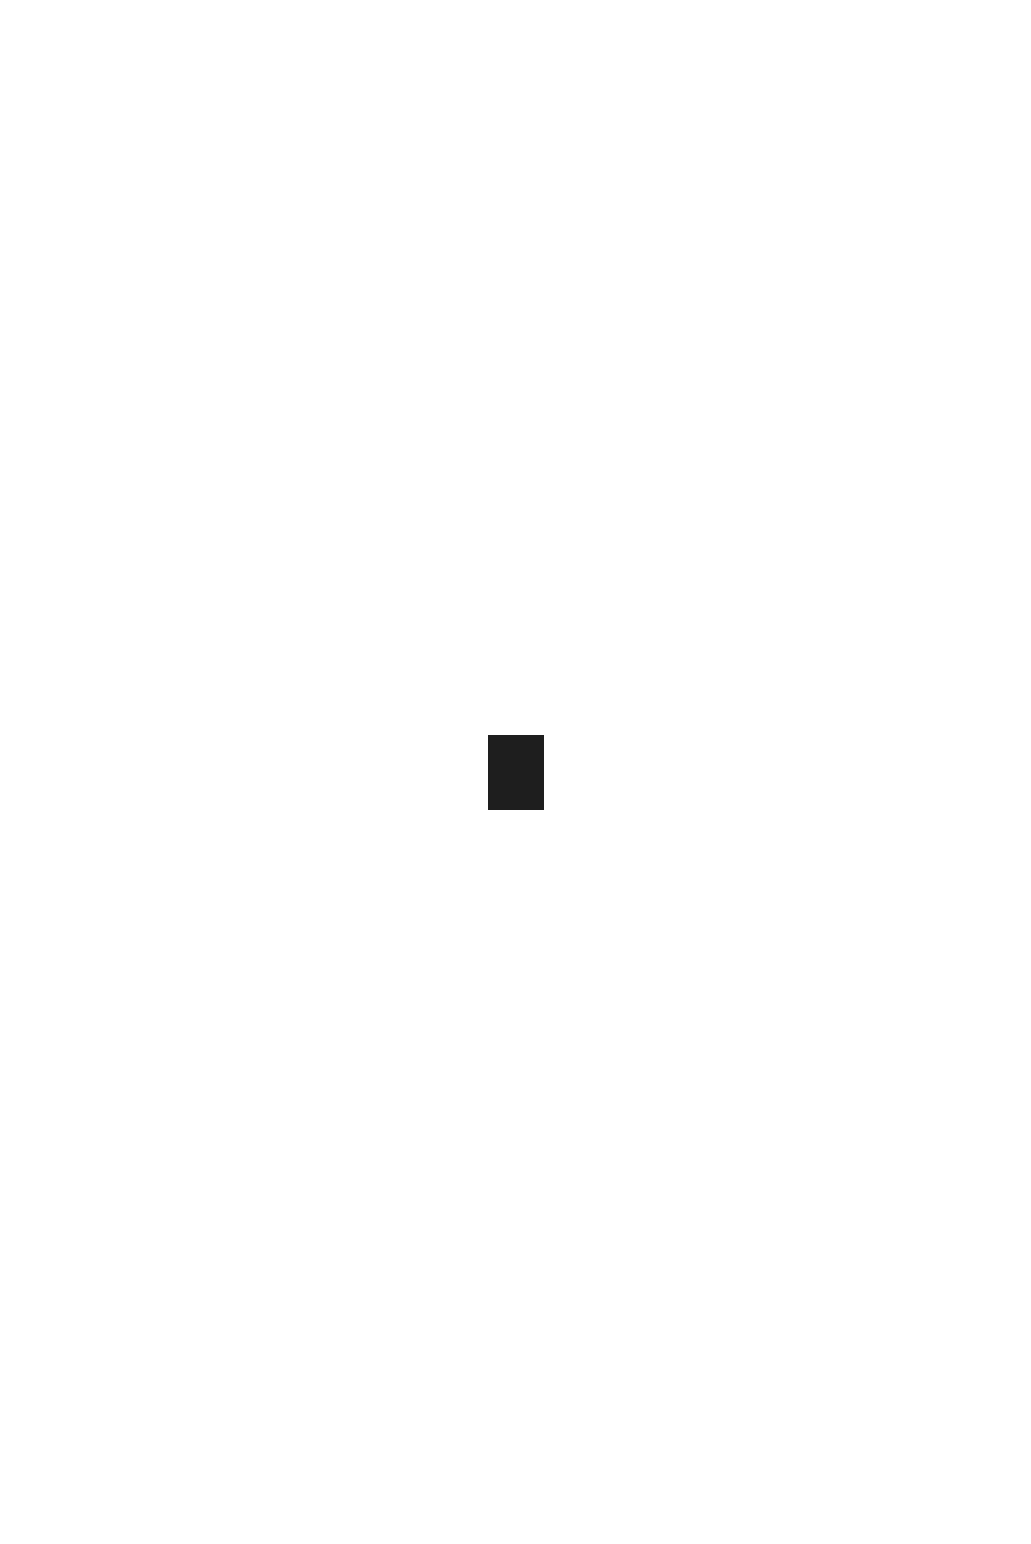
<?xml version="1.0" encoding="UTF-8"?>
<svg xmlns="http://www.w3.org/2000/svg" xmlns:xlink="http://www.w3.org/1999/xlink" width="1031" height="1544">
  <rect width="100%" height="100%" fill="#ffffff" />
  <rect x="488" y="735" width="56" height="75" fill="#1e1e1e" />
</svg>
